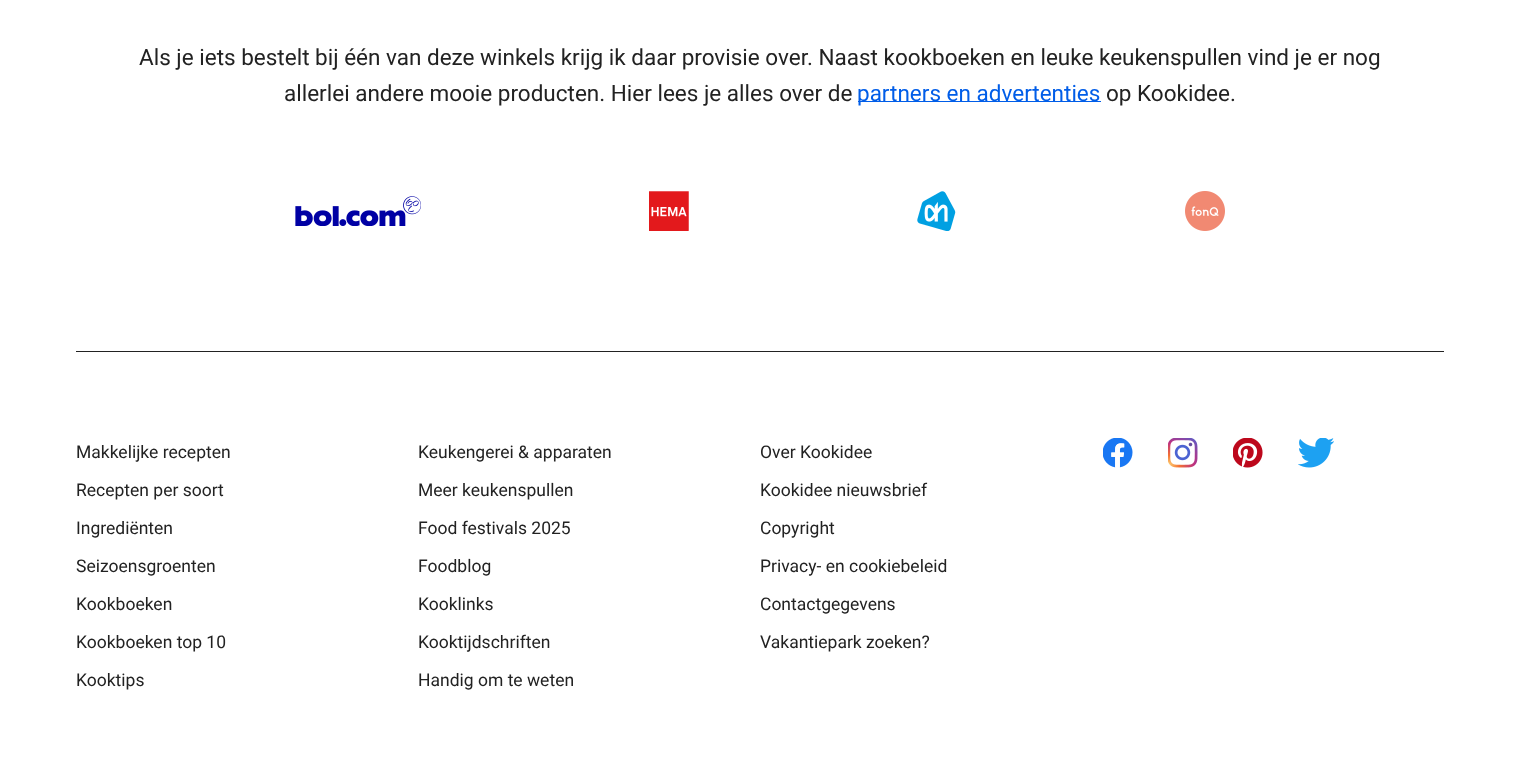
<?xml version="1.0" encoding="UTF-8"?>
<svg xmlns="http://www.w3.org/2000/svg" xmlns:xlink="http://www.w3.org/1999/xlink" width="1520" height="778">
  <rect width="100%" height="100%" fill="#ffffff" />
  <rect x="858" y="101" width="243" height="1" fill="#005de8" />
  <image x="295" y="196" width="126" height="30" xlink:href="image1.png" />
  <image x="649" y="191" width="40" height="40" xlink:href="image2.png" />
  <image x="917" y="191" width="39" height="40" xlink:href="image3.png" />
  <image x="1185" y="191" width="40" height="40" xlink:href="image4.png" />
  <rect x="76" y="351" width="1368" height="1" fill="#222222" />
  <image x="1103" y="438" width="30" height="30" xlink:href="image5.png" />
  <image x="1168" y="438" width="30" height="30" xlink:href="image6.png" />
  <image x="1233" y="438" width="30" height="30" xlink:href="image7.png" />
  <image x="1298" y="438" width="36" height="30" xlink:href="image8.png" />
  <text x="139" y="65" style="font-family: Roboto; font-size: 22.5px; fill: #222222">Als je iets bestelt bij één van deze winkels krijg ik daar provisie over. Naast kookboeken en leuke keukenspullen vind je er nog</text>
  <text x="284" y="101" style="font-family: Roboto; font-size: 22.5px; fill: #222222">allerlei andere mooie producten. Hier lees je alles over de</text>
  <text x="857" y="101" style="font-family: Roboto; font-size: 22.5px; fill: #005de8">partners en advertenties</text>
  <text x="1106" y="101" style="font-family: Roboto; font-size: 22.5px; fill: #222222">op Kookidee.</text>
  <text x="76" y="458" style="font-family: Roboto; font-size: 17.5px; fill: #222222">Makkelijke recepten</text>
  <text x="76" y="496" style="font-family: Roboto; font-size: 17.5px; fill: #222222">Recepten per soort</text>
  <text x="76" y="534" style="font-family: Roboto; font-size: 17.5px; fill: #222222">Ingrediënten</text>
  <text x="76" y="572" style="font-family: Roboto; font-size: 17.5px; fill: #222222">Seizoensgroenten</text>
  <text x="76" y="610" style="font-family: Roboto; font-size: 17.5px; fill: #222222">Kookboeken</text>
  <text x="76" y="648" style="font-family: Roboto; font-size: 17.5px; fill: #222222">Kookboeken top 10</text>
  <text x="76" y="686" style="font-family: Roboto; font-size: 17.5px; fill: #222222">Kooktips</text>
  <text x="418" y="458" style="font-family: Roboto; font-size: 17.5px; fill: #222222">Keukengerei &amp; apparaten</text>
  <text x="418" y="496" style="font-family: Roboto; font-size: 17.5px; fill: #222222">Meer keukenspullen</text>
  <text x="418" y="534" style="font-family: Roboto; font-size: 17.5px; fill: #222222">Food festivals 2025</text>
  <text x="418" y="572" style="font-family: Roboto; font-size: 17.5px; fill: #222222">Foodblog</text>
  <text x="418" y="610" style="font-family: Roboto; font-size: 17.5px; fill: #222222">Kooklinks</text>
  <text x="418" y="648" style="font-family: Roboto; font-size: 17.5px; fill: #222222">Kooktijdschriften</text>
  <text x="418" y="686" style="font-family: Roboto; font-size: 17.5px; fill: #222222">Handig om te weten</text>
  <text x="760" y="458" style="font-family: Roboto; font-size: 17.5px; fill: #222222">Over Kookidee</text>
  <text x="760" y="496" style="font-family: Roboto; font-size: 17.5px; fill: #222222">Kookidee nieuwsbrief</text>
  <text x="760" y="534" style="font-family: Roboto; font-size: 17.5px; fill: #222222">Copyright</text>
  <text x="760" y="572" style="font-family: Roboto; font-size: 17.5px; fill: #222222">Privacy- en cookiebeleid</text>
  <text x="760" y="610" style="font-family: Roboto; font-size: 17.5px; fill: #222222">Contactgegevens</text>
  <text x="760" y="648" style="font-family: Roboto; font-size: 17.5px; fill: #222222">Vakantiepark zoeken?</text>
</svg>
